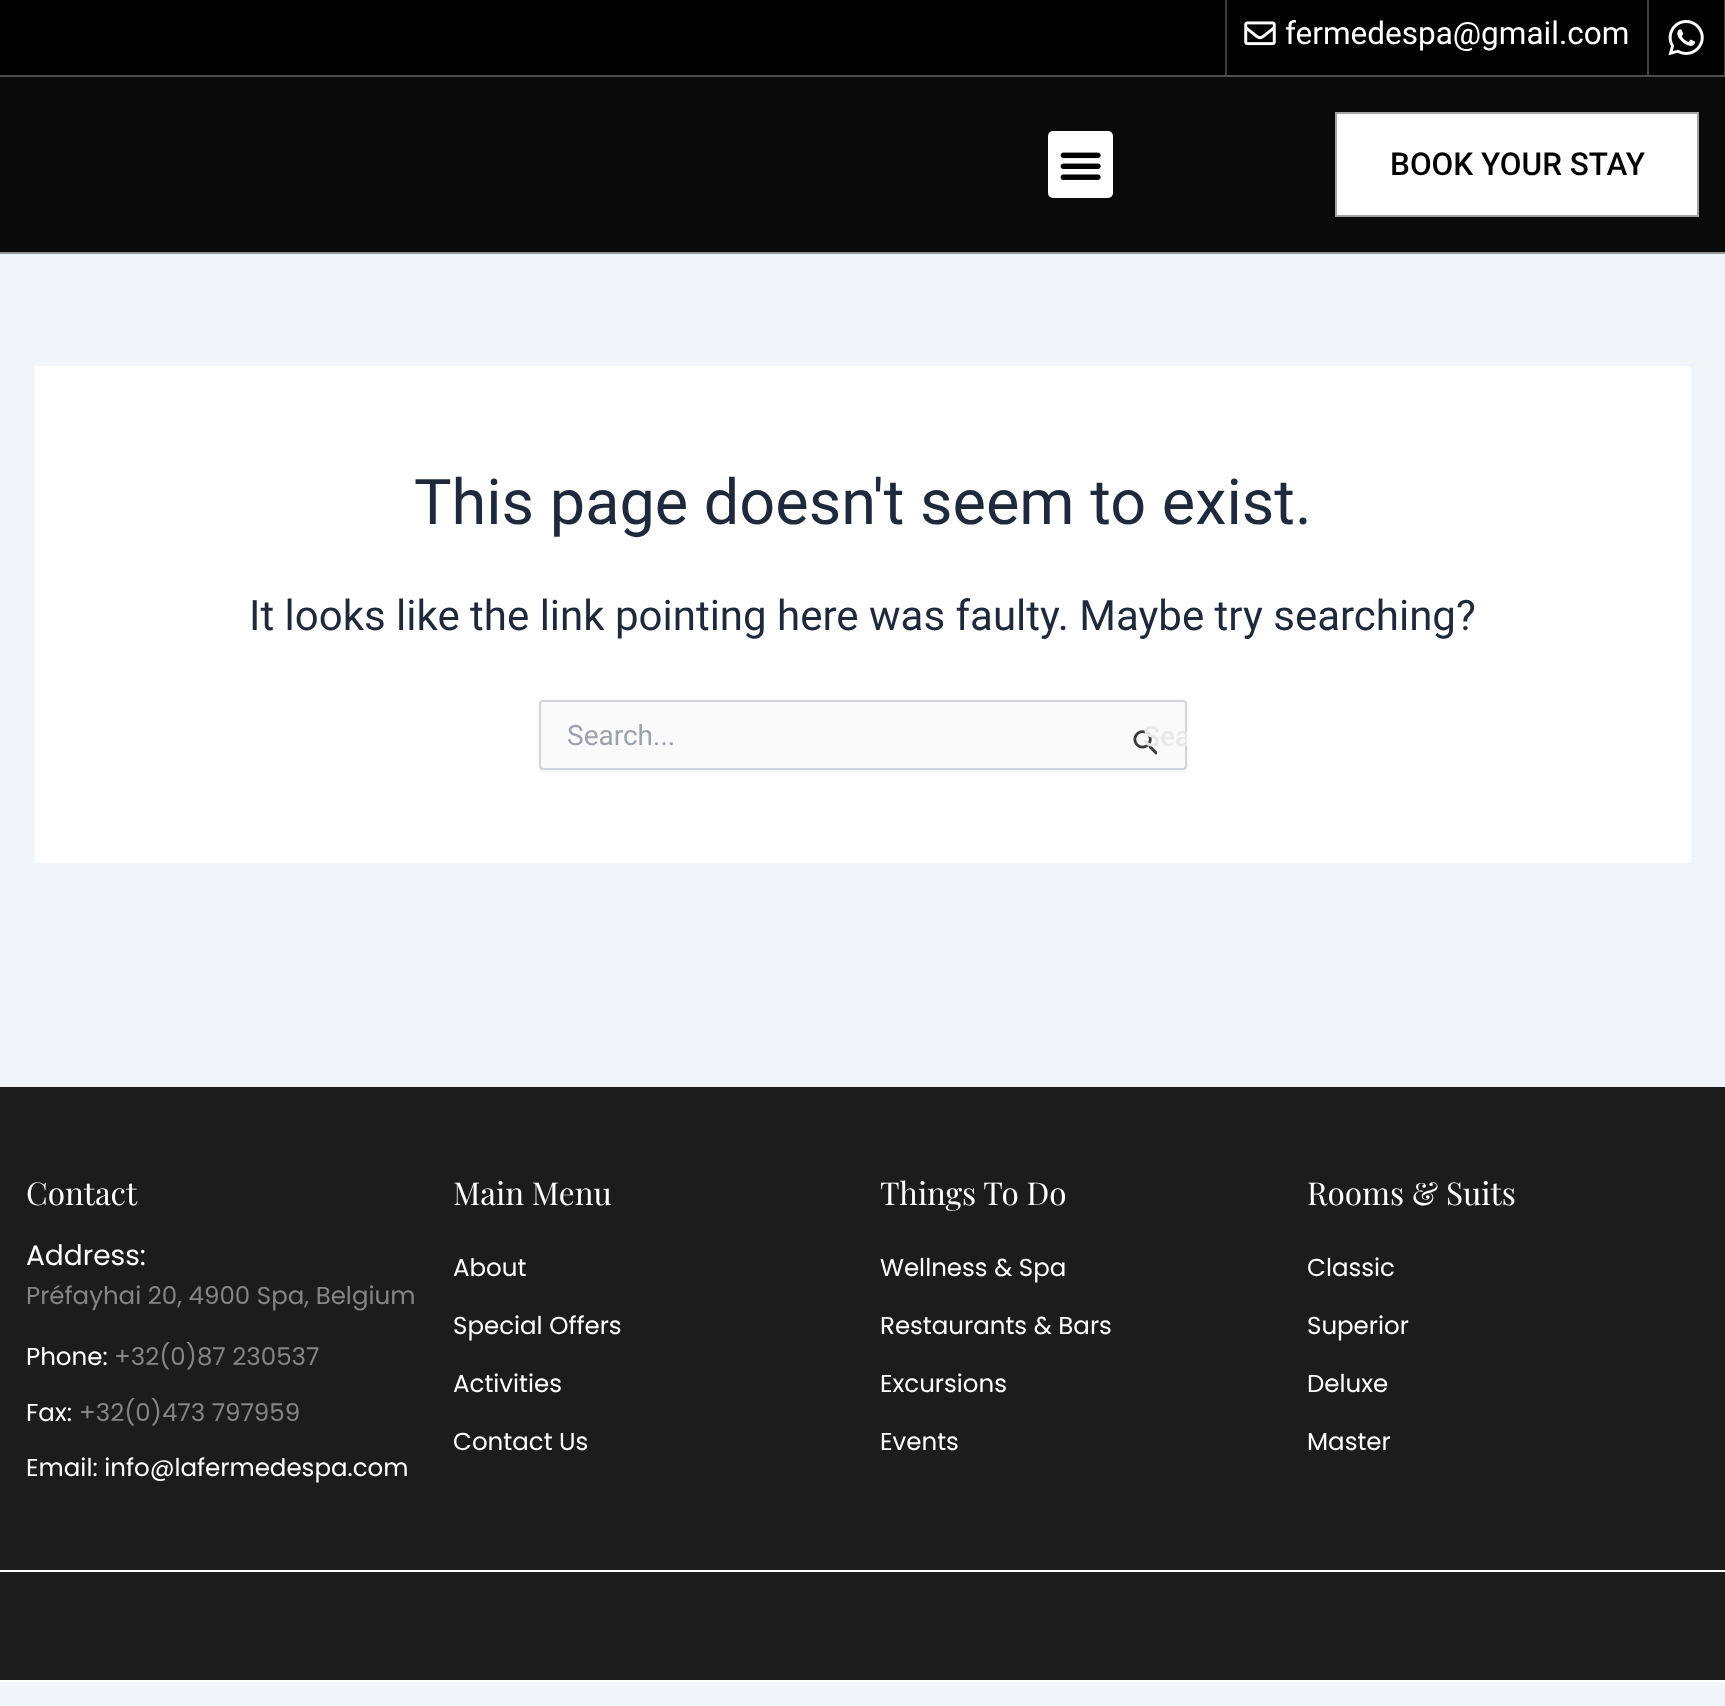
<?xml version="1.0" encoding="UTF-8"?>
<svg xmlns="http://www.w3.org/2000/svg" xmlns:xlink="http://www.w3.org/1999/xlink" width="1725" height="1706">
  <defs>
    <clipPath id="clip1"><rect x="1108" y="700" width="79" height="74" rx="4" /></clipPath>
  </defs>
  <rect width="100%" height="100%" fill="#f0f5fa" />
  <rect width="1724" height="75" fill="#000000" />
  <rect y="75" width="1725" height="2" fill="#4d4d4d" />
  <rect x="1724" width="1" height="75" fill="#3e3e3e" />
  <rect x="1225" width="2" height="75" fill="#3e3e3e" />
  <image x="1244" y="21" width="32" height="25" xlink:href="image1.png" />
  <rect x="1647" width="2" height="75" fill="#3e3e3e" />
  <image x="1668" y="20" width="36" height="36" xlink:href="image2.png" />
  <rect y="77" width="1725" height="175" fill="#0a0a0a" />
  <rect y="252" width="1725" height="2" fill="#969696" />
  <rect x="1048" y="131" width="65" height="67" rx="5" fill="#ffffff" />
  <image x="1060" y="152" width="41" height="28" xlink:href="image3.png" />
  <rect x="1336" y="113" width="362" height="103" fill="#ffffff" stroke="#a3a3a3" stroke-width="2" />
  <rect x="35" y="366" width="1656" height="497" fill="#ffffff" />
  <rect x="539" y="702" width="648" height="70" rx="4" fill="#000000" fill-opacity="0.05" filter="blur(2px)" />
  <rect x="540" y="701" width="646" height="68" rx="3" fill="#fafafa" stroke="#d1d5db" stroke-width="2" />
  <image x="1133" y="730" width="24" height="25" xlink:href="image4.png" />
  <rect y="1087" width="1725" height="483" fill="#1c1c1c" />
  <rect y="1572" width="1725" height="108" fill="#1c1c1c" />
  <rect y="1570" width="1725" height="2" fill="#ffffff" />
  <rect y="1680" width="1725" height="2" fill="#ffffff" />
  <text x="1285" y="44" style="font-family: Roboto; font-size: 31.5px; fill: #ffffff">fermedespa@gmail.com</text>
  <text x="1390" y="175" style="font-family: Roboto; font-size: 31.5px; font-weight: 500; fill: #000000">BOOK YOUR STAY</text>
  <text x="414" y="524" style="font-family: Roboto; font-size: 63px; fill: #1e293b">This page doesn't seem to exist.</text>
  <text x="249" y="630" style="font-family: Roboto; font-size: 42px; fill: #1e293b">It looks like the link pointing here was faulty. Maybe try searching?</text>
  <text x="567" y="745" style="font-family: Roboto; font-size: 28px; fill: #9ca3af">Search...</text>
  <g clip-path="url(#clip1)">
    <text x="1143" y="746" style="font-family: Roboto; font-size: 28px; font-weight: 500; fill: #e8e8e9">Sea</text>
  </g>
  <text x="26" y="1205" style="font-family: Playfair Display; font-size: 31.5px; fill: #ffffff">Contact</text>
  <text x="26" y="1265" style="font-family: Poppins; font-size: 28px; fill: #ffffff">Address:</text>
  <text x="26" y="1304" style="font-family: Poppins; font-size: 24.5px; fill: #858585">Préfayhai 20, 4900 Spa, Belgium</text>
  <text x="26" y="1365" style="font-family: Poppins; font-size: 24.5px; fill: #ffffff">Phone:</text>
  <text x="114" y="1365" style="font-family: Poppins; font-size: 24.5px; fill: #858585">+32(0)87 230537</text>
  <text x="26" y="1421" style="font-family: Poppins; font-size: 24.5px; fill: #ffffff">Fax:</text>
  <text x="79" y="1421" style="font-family: Poppins; font-size: 24.5px; fill: #858585">+32(0)473 797959</text>
  <text x="26" y="1476" style="font-family: Poppins; font-size: 24.5px; fill: #ffffff">Email: info@lafermedespa.com</text>
  <text x="453" y="1205" style="font-family: Playfair Display; font-size: 31.5px; fill: #ffffff">Main Menu</text>
  <text x="453" y="1276" style="font-family: Poppins; font-size: 24.5px; fill: #ffffff">About</text>
  <text x="453" y="1334" style="font-family: Poppins; font-size: 24.5px; fill: #ffffff">Special Offers</text>
  <text x="453" y="1392" style="font-family: Poppins; font-size: 24.5px; fill: #ffffff">Activities</text>
  <text x="453" y="1450" style="font-family: Poppins; font-size: 24.5px; fill: #ffffff">Contact Us</text>
  <text x="880" y="1205" style="font-family: Playfair Display; font-size: 31.5px; fill: #ffffff">Things To Do</text>
  <text x="880" y="1276" style="font-family: Poppins; font-size: 24.5px; fill: #ffffff">Wellness &amp; Spa</text>
  <text x="880" y="1334" style="font-family: Poppins; font-size: 24.5px; fill: #ffffff">Restaurants &amp; Bars</text>
  <text x="880" y="1392" style="font-family: Poppins; font-size: 24.5px; fill: #ffffff">Excursions</text>
  <text x="880" y="1450" style="font-family: Poppins; font-size: 24.5px; fill: #ffffff">Events</text>
  <text x="1307" y="1205" style="font-family: Playfair Display; font-size: 31.5px; fill: #ffffff">Rooms &amp; Suits</text>
  <text x="1307" y="1276" style="font-family: Poppins; font-size: 24.5px; fill: #ffffff">Classic</text>
  <text x="1307" y="1334" style="font-family: Poppins; font-size: 24.5px; fill: #ffffff">Superior</text>
  <text x="1307" y="1392" style="font-family: Poppins; font-size: 24.5px; fill: #ffffff">Deluxe</text>
  <text x="1307" y="1450" style="font-family: Poppins; font-size: 24.5px; fill: #ffffff">Master</text>
</svg>
